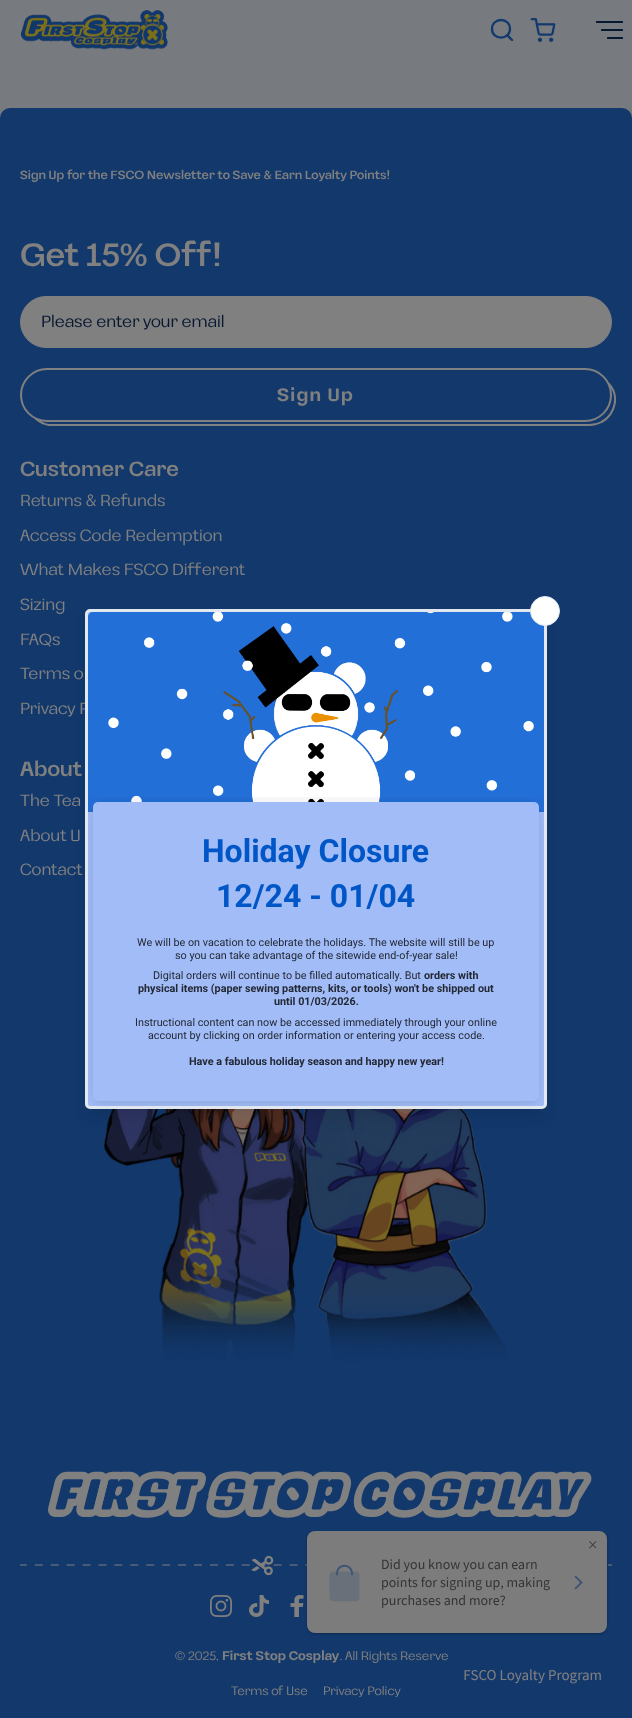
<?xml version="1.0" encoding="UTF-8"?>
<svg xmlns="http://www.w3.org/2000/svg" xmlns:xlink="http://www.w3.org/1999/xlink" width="632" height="1718">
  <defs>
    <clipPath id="clip1"><rect x="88" y="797" width="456" height="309" /></clipPath>
  </defs>
  <rect width="100%" height="100%" fill="#777b80" />
  <image x="0" y="117" width="632" height="1" xlink:href="image1.png" />
  <image x="20" y="10" width="148" height="40" xlink:href="image2.png" />
  <path d="M 512 40 l -5 -5 m 3 -6 c 0 11.5 -18 11.5 -18 0 c 0 -12 18 -12 18 0 z" fill="none" stroke="#12386c" stroke-width="2.3" stroke-linecap="round" stroke-linejoin="round" />
  <image x="530" y="18" width="26" height="24" xlink:href="image3.png" />
  <rect x="607" y="37" width="16" height="2" rx="0.5" fill="#071830" />
  <rect x="601" y="29" width="22" height="2" rx="0.5" fill="#071830" />
  <rect x="596" y="21" width="27" height="2" rx="0.5" fill="#071830" />
  <rect y="108" width="632" height="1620" rx="10" fill="#12386c" />
  <rect x="20.5" y="296.5" width="591" height="51" rx="25.5" fill="#808080" stroke="#808080" />
  <rect x="21" y="369" width="590" height="52" rx="26" fill="none" stroke="#808080" stroke-width="2" />
  <path d="M 608.5 383.5 c 11.5 11.5 7 31 -7 38.5 c -3.5 2 -8 3 -12 3 h -540 c -5.5 -0.5 -10 -3 -14 -6.5" fill="none" stroke="#808080" stroke-width="2" />
  <image x="103" y="1109" width="407" height="254" xlink:href="image4.png" />
  <image x="20" y="1555" width="592" height="21" xlink:href="image5.png" />
  <image x="210" y="1595" width="22" height="22" xlink:href="image6.png" />
  <image x="249" y="1595" width="20" height="22" xlink:href="image7.png" />
  <image x="290" y="1595" width="14" height="22" xlink:href="image8.png" />
  <rect x="88" y="622" width="456" height="494" rx="2" fill="#000000" fill-opacity="0.1" filter="blur(7.5px)" />
  <image x="305" y="1530" width="304" height="106" xlink:href="image10.png" />
  <image x="450" y="1651" width="151" height="33" xlink:href="image11.png" />
  <text x="20" y="179" style="font-family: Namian; font-size: 12px; font-weight: 600; fill: #808080">Sign Up for the FSCO Newsletter to Save &amp; Earn Loyalty Points!</text>
  <text x="20" y="266" style="font-family: Namian; font-size: 32.5px; font-weight: 600; fill: #808080">Get 15% Off!</text>
  <text x="41" y="327" style="font-family: Namian; font-size: 16.75px; fill: #071830">Please enter your email</text>
  <text x="277" y="401" style="font-family: Namian; font-size: 18px; font-weight: bold; letter-spacing: 1.25px; fill: #808080">Sign Up</text>
  <text x="20" y="476" style="font-family: Namian; font-size: 20.75px; font-weight: 600; fill: #808080">Customer Care</text>
  <text x="20" y="506" style="font-family: Namian; font-size: 16.75px; fill: #808080">Returns &amp; Refunds</text>
  <text x="20" y="541" style="font-family: Namian; font-size: 16.75px; fill: #808080">Access Code Redemption</text>
  <text x="20" y="575" style="font-family: Namian; font-size: 16.75px; fill: #808080">What Makes FSCO Different</text>
  <text x="20" y="610" style="font-family: Namian; font-size: 16.75px; fill: #808080">Sizing</text>
  <text x="20" y="645" style="font-family: Namian; font-size: 16.75px; fill: #808080">FAQs</text>
  <text x="20" y="679" style="font-family: Namian; font-size: 16.75px; fill: #808080">Terms o</text>
  <text x="20" y="714" style="font-family: Namian; font-size: 16.75px; fill: #808080">Privacy P</text>
  <text x="20" y="776" style="font-family: Namian; font-size: 20.75px; font-weight: 600; fill: #808080">About</text>
  <text x="20" y="806" style="font-family: Namian; font-size: 16.75px; fill: #808080">The Tea</text>
  <text x="20" y="841" style="font-family: Namian; font-size: 16.75px; fill: #808080">About U</text>
  <text x="20" y="875" style="font-family: Namian; font-size: 16.75px; fill: #808080">Contact</text>
  <text x="52" y="1517" style="font-family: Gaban; font-size: 55px; font-weight: bold; font-style: italic; fill: #808080">FIRST STOP COSPLAY</text>
  <text x="175" y="1660" style="font-family: Namian; font-size: 12.5px; fill: #808080">© 2025,</text>
  <text x="222" y="1660" style="font-family: Namian; font-size: 12.5px; font-weight: bold; fill: #808080">First Stop Cosplay</text>
  <text x="340" y="1660" style="font-family: Namian; font-size: 12.5px; fill: #808080">. All Rights Reserve</text>
  <text x="231" y="1695" style="font-family: Namian; font-size: 12.5px; fill: #808080">Terms of Use</text>
  <text x="323" y="1695" style="font-family: Namian; font-size: 12.5px; fill: #808080">Privacy Policy</text>
  <rect x="86.5" y="610.5" width="459" height="497" rx="3.5" fill="#a1bcf7" stroke="#e2e8f0" stroke-width="3" />
  <image x="88" y="612" width="456" height="200" xlink:href="image9.png" />
  <circle cx="545" cy="611" r="14.5" fill="#ffffff" stroke="#e2e8f0" />
  <rect x="95" y="808" width="442" height="295" rx="3" fill="#000000" fill-opacity="0.05" filter="blur(3px)" />
  <g clip-path="url(#clip1)">
    <rect x="96" y="805" width="440" height="293" rx="2" fill="#000000" fill-opacity="0.12" filter="blur(10px)" />
  </g>
  <rect x="93" y="802" width="446" height="299" rx="5" fill="#a1bcf7" />
  <text x="202" y="862" style="font-family: Roboto; font-size: 32px; font-weight: bold; fill: #0056c6">Holiday Closure</text>
  <text x="216" y="907" style="font-family: Roboto; font-size: 32px; font-weight: bold; fill: #0056c6">12/24 - 01/04</text>
  <text x="137" y="946" style="font-family: Roboto; font-size: 10.8px; fill: #232834">We will be on vacation to celebrate the holidays. The website will still be up</text>
  <text x="175" y="959" style="font-family: Roboto; font-size: 10.8px; fill: #232834">so you can take advantage of the sitewide end-of-year sale!</text>
  <text x="153" y="979" style="font-family: Roboto; font-size: 10.8px; fill: #232834">Digital orders will continue to be filled automatically. But</text>
  <text x="424" y="979" style="font-family: Roboto; font-size: 10.8px; font-weight: bold; fill: #232834">orders with</text>
  <text x="138" y="992" style="font-family: Roboto; font-size: 10.8px; font-weight: bold; fill: #232834">physical items (paper sewing patterns, kits, or tools) won't be shipped out</text>
  <text x="274" y="1005" style="font-family: Roboto; font-size: 10.8px; font-weight: bold; fill: #232834">until 01/03/2026.</text>
  <text x="135" y="1026" style="font-family: Roboto; font-size: 10.8px; fill: #232834">Instructional content can now be accessed immediately through your online</text>
  <text x="148" y="1039" style="font-family: Roboto; font-size: 10.8px; fill: #232834">account by clicking on order information or entering your access code.</text>
  <text x="189" y="1065" style="font-family: Roboto; font-size: 10.8px; font-weight: bold; fill: #232834">Have a fabulous holiday season and happy new year!</text>
</svg>
